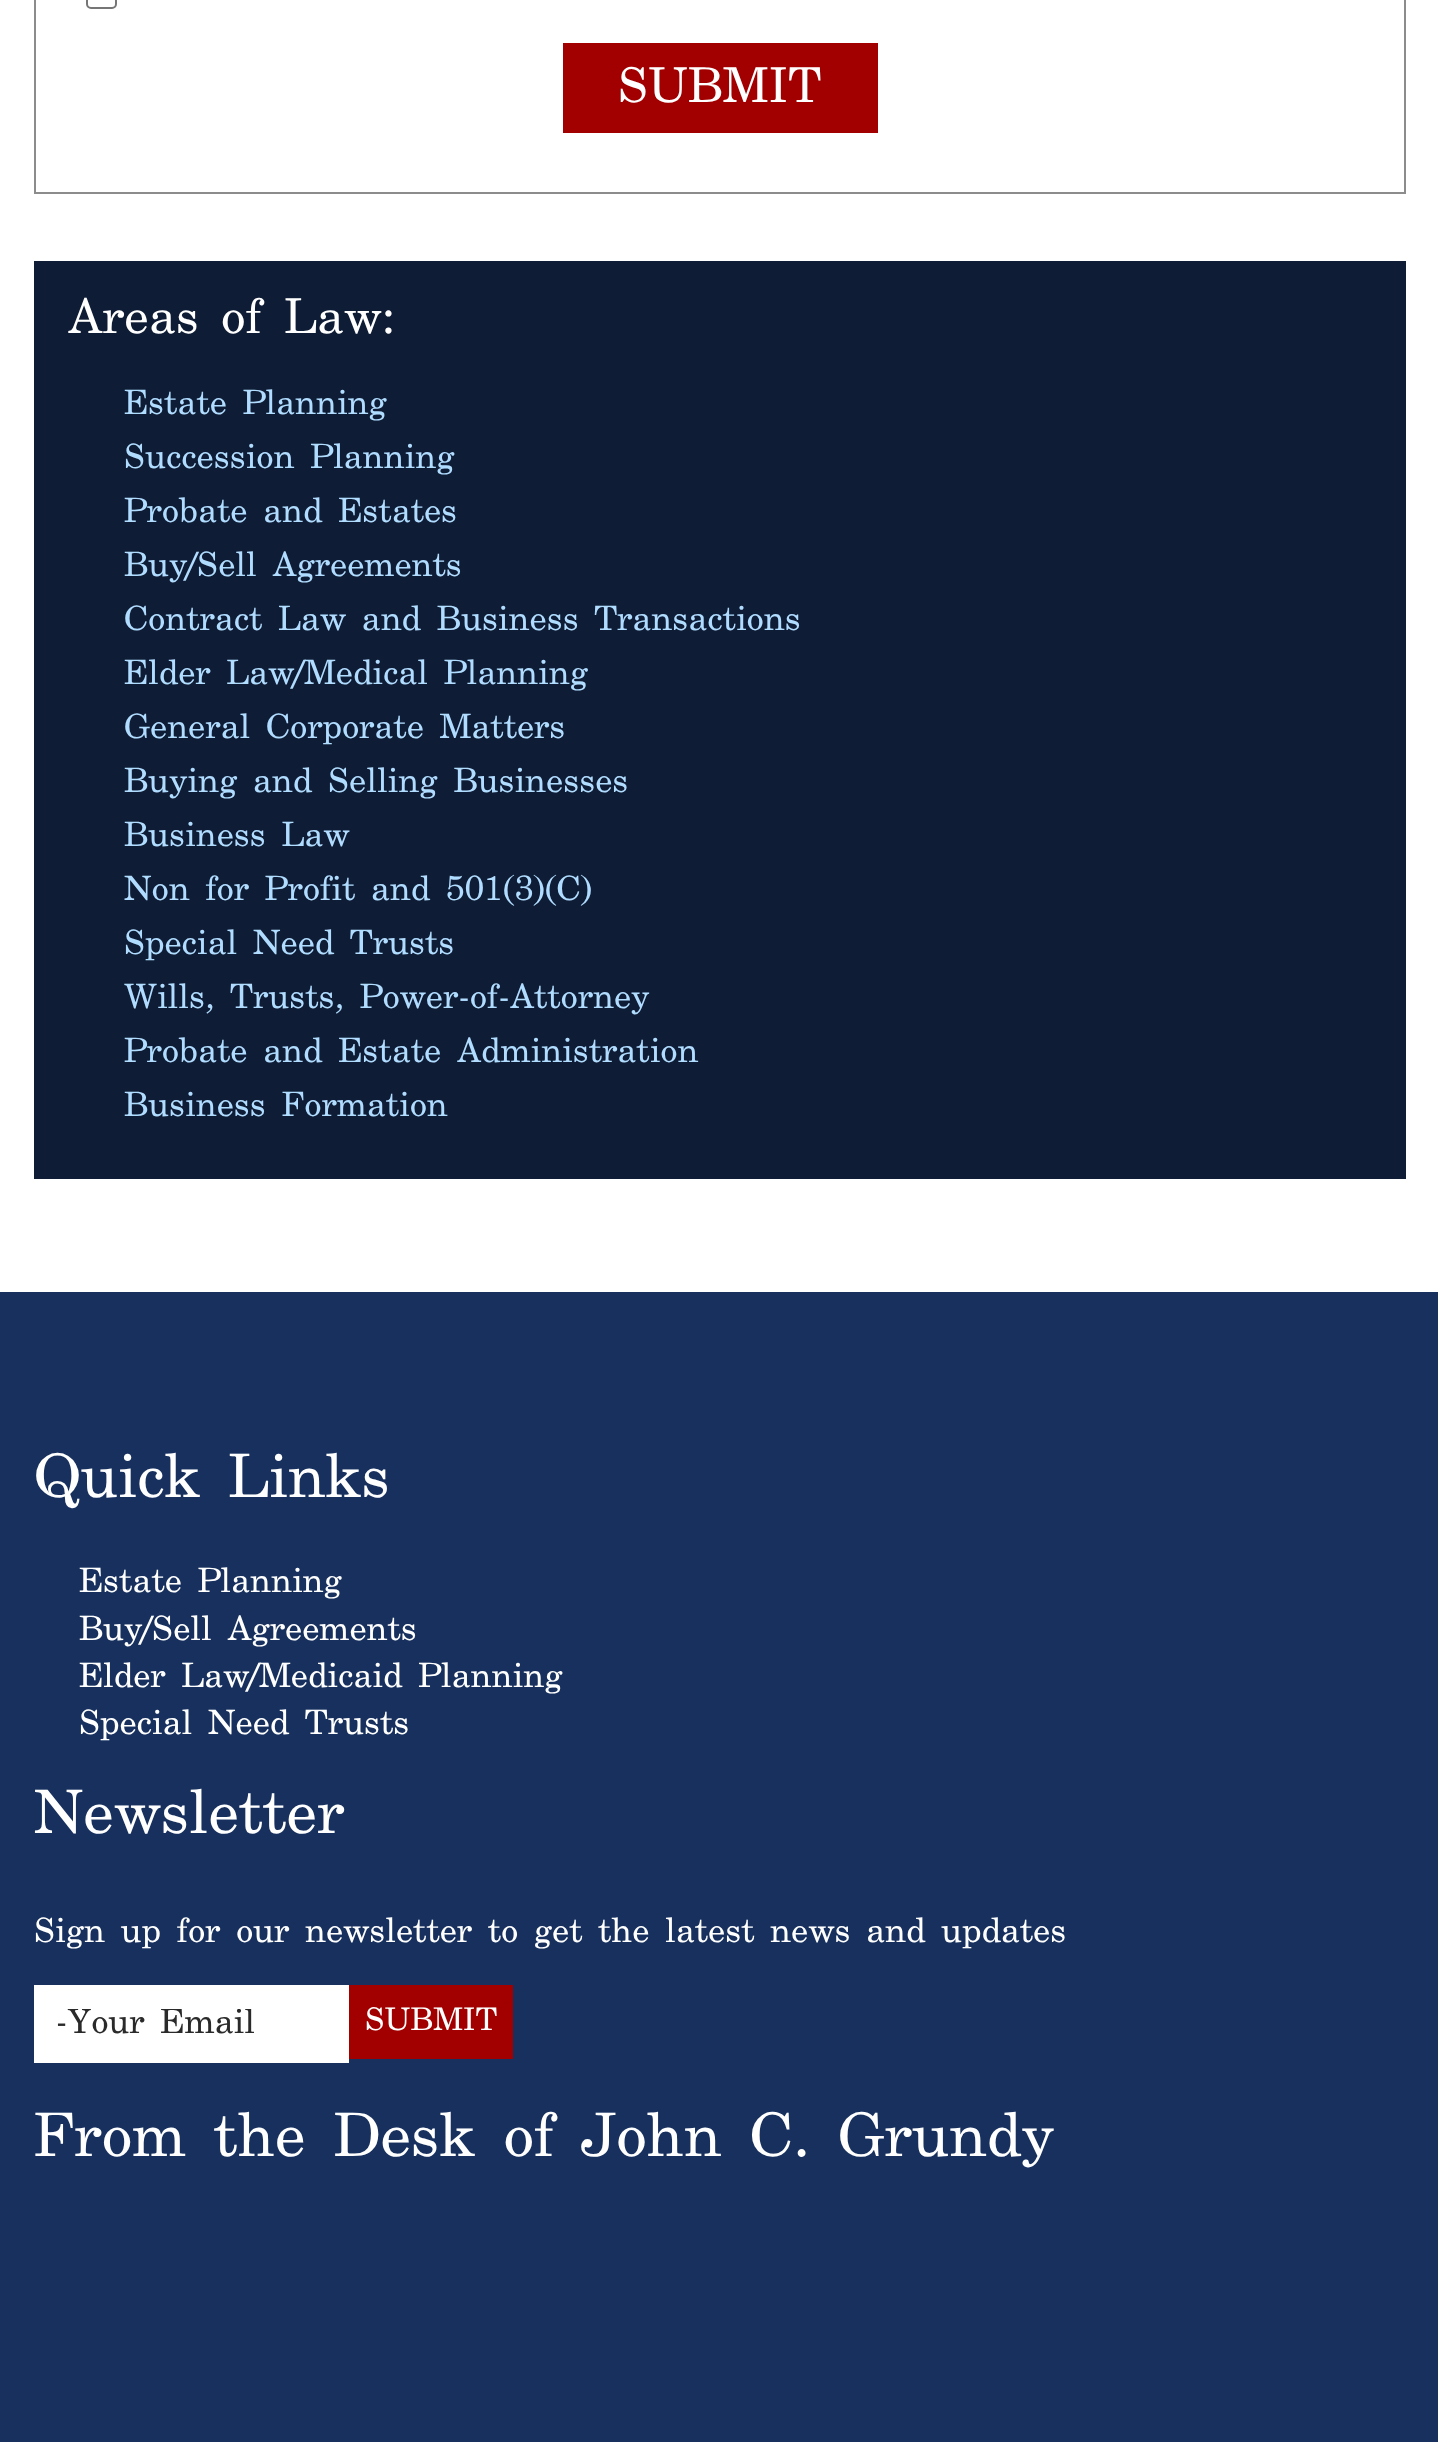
<?xml version="1.0" encoding="UTF-8"?>
<svg xmlns="http://www.w3.org/2000/svg" xmlns:xlink="http://www.w3.org/1999/xlink" width="1438" height="2442">
  <defs>
    <clipPath id="clip1"><rect x="56" y="2009" width="270" height="32" /></clipPath>
  </defs>
  <rect width="100%" height="100%" fill="#ffffff" />
  <rect x="35" y="-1" width="1370" height="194" fill="none" stroke="#8c8c8d" stroke-width="2" />
  <rect x="87" y="-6" width="29" height="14" rx="4" fill="none" stroke="#767676" stroke-width="2" />
  <rect x="563" y="43" width="315" height="90" fill="#a20000" />
  <rect x="34" y="261" width="1372" height="918" fill="#0f1c35" />
  <rect y="1292" width="1438" height="1150" fill="#17305e" />
  <rect x="34" y="1985" width="315" height="78" fill="#ffffff" />
  <rect x="349" y="1985" width="164" height="74" fill="#a20000" />
  <text x="618" y="102" style="font-family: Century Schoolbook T; font-size: 45px; fill: #ffffff">SUBMIT</text>
  <text x="68" y="333" style="font-family: Century Schoolbook T; font-size: 45px; fill: #ffffff">Areas of Law:</text>
  <text x="124" y="414" style="font-family: Century Schoolbook T; font-size: 31.5px; fill: #b0dcff">Estate Planning</text>
  <text x="124" y="468" style="font-family: Century Schoolbook T; font-size: 31.5px; fill: #b0dcff">Succession Planning</text>
  <text x="124" y="522" style="font-family: Century Schoolbook T; font-size: 31.5px; fill: #b0dcff">Probate and Estates</text>
  <text x="124" y="576" style="font-family: Century Schoolbook T; font-size: 31.5px; fill: #b0dcff">Buy/Sell Agreements</text>
  <text x="124" y="630" style="font-family: Century Schoolbook T; font-size: 31.5px; fill: #b0dcff">Contract Law and Business Transactions</text>
  <text x="124" y="684" style="font-family: Century Schoolbook T; font-size: 31.5px; fill: #b0dcff">Elder Law/Medical Planning</text>
  <text x="124" y="738" style="font-family: Century Schoolbook T; font-size: 31.5px; fill: #b0dcff">General Corporate Matters</text>
  <text x="124" y="792" style="font-family: Century Schoolbook T; font-size: 31.5px; fill: #b0dcff">Buying and Selling Businesses</text>
  <text x="124" y="846" style="font-family: Century Schoolbook T; font-size: 31.5px; fill: #b0dcff">Business Law</text>
  <text x="124" y="900" style="font-family: Century Schoolbook T; font-size: 31.5px; fill: #b0dcff">Non for Profit and 501(3)(C)</text>
  <text x="124" y="954" style="font-family: Century Schoolbook T; font-size: 31.5px; fill: #b0dcff">Special Need Trusts</text>
  <text x="124" y="1008" style="font-family: Century Schoolbook T; font-size: 31.5px; fill: #b0dcff">Wills, Trusts, Power-of-Attorney</text>
  <text x="124" y="1062" style="font-family: Century Schoolbook T; font-size: 31.5px; fill: #b0dcff">Probate and Estate Administration</text>
  <text x="124" y="1116" style="font-family: Century Schoolbook T; font-size: 31.5px; fill: #b0dcff">Business Formation</text>
  <text x="34" y="1497" style="font-family: Century Schoolbook T; font-size: 56.25px; fill: #ffffff">Quick Links</text>
  <text x="79" y="1592" style="font-family: Century Schoolbook T; font-size: 31.5px; fill: #ffffff">Estate Planning</text>
  <text x="79" y="1640" style="font-family: Century Schoolbook T; font-size: 31.5px; fill: #ffffff">Buy/Sell Agreements</text>
  <text x="79" y="1687" style="font-family: Century Schoolbook T; font-size: 31.5px; fill: #ffffff">Elder Law/Medicaid Planning</text>
  <text x="79" y="1734" style="font-family: Century Schoolbook T; font-size: 31.5px; fill: #ffffff">Special Need Trusts</text>
  <text x="34" y="1833" style="font-family: Century Schoolbook T; font-size: 56.25px; fill: #ffffff">Newsletter</text>
  <text x="34" y="1942" style="font-family: Century Schoolbook T; font-size: 31.5px; fill: #ffffff">Sign up for our newsletter to get the latest news and updates</text>
  <g clip-path="url(#clip1)">
    <text x="56" y="2033" style="font-family: Century Schoolbook T; font-size: 31.5px; fill: #2a2a2a">-Your Email</text>
  </g>
  <text x="365" y="2030" style="font-family: Century Schoolbook T; font-size: 29.25px; fill: #ffffff">SUBMIT</text>
  <text x="34" y="2156" style="font-family: Century Schoolbook T; font-size: 56.25px; fill: #ffffff">From the Desk of John C. Grundy</text>
</svg>
